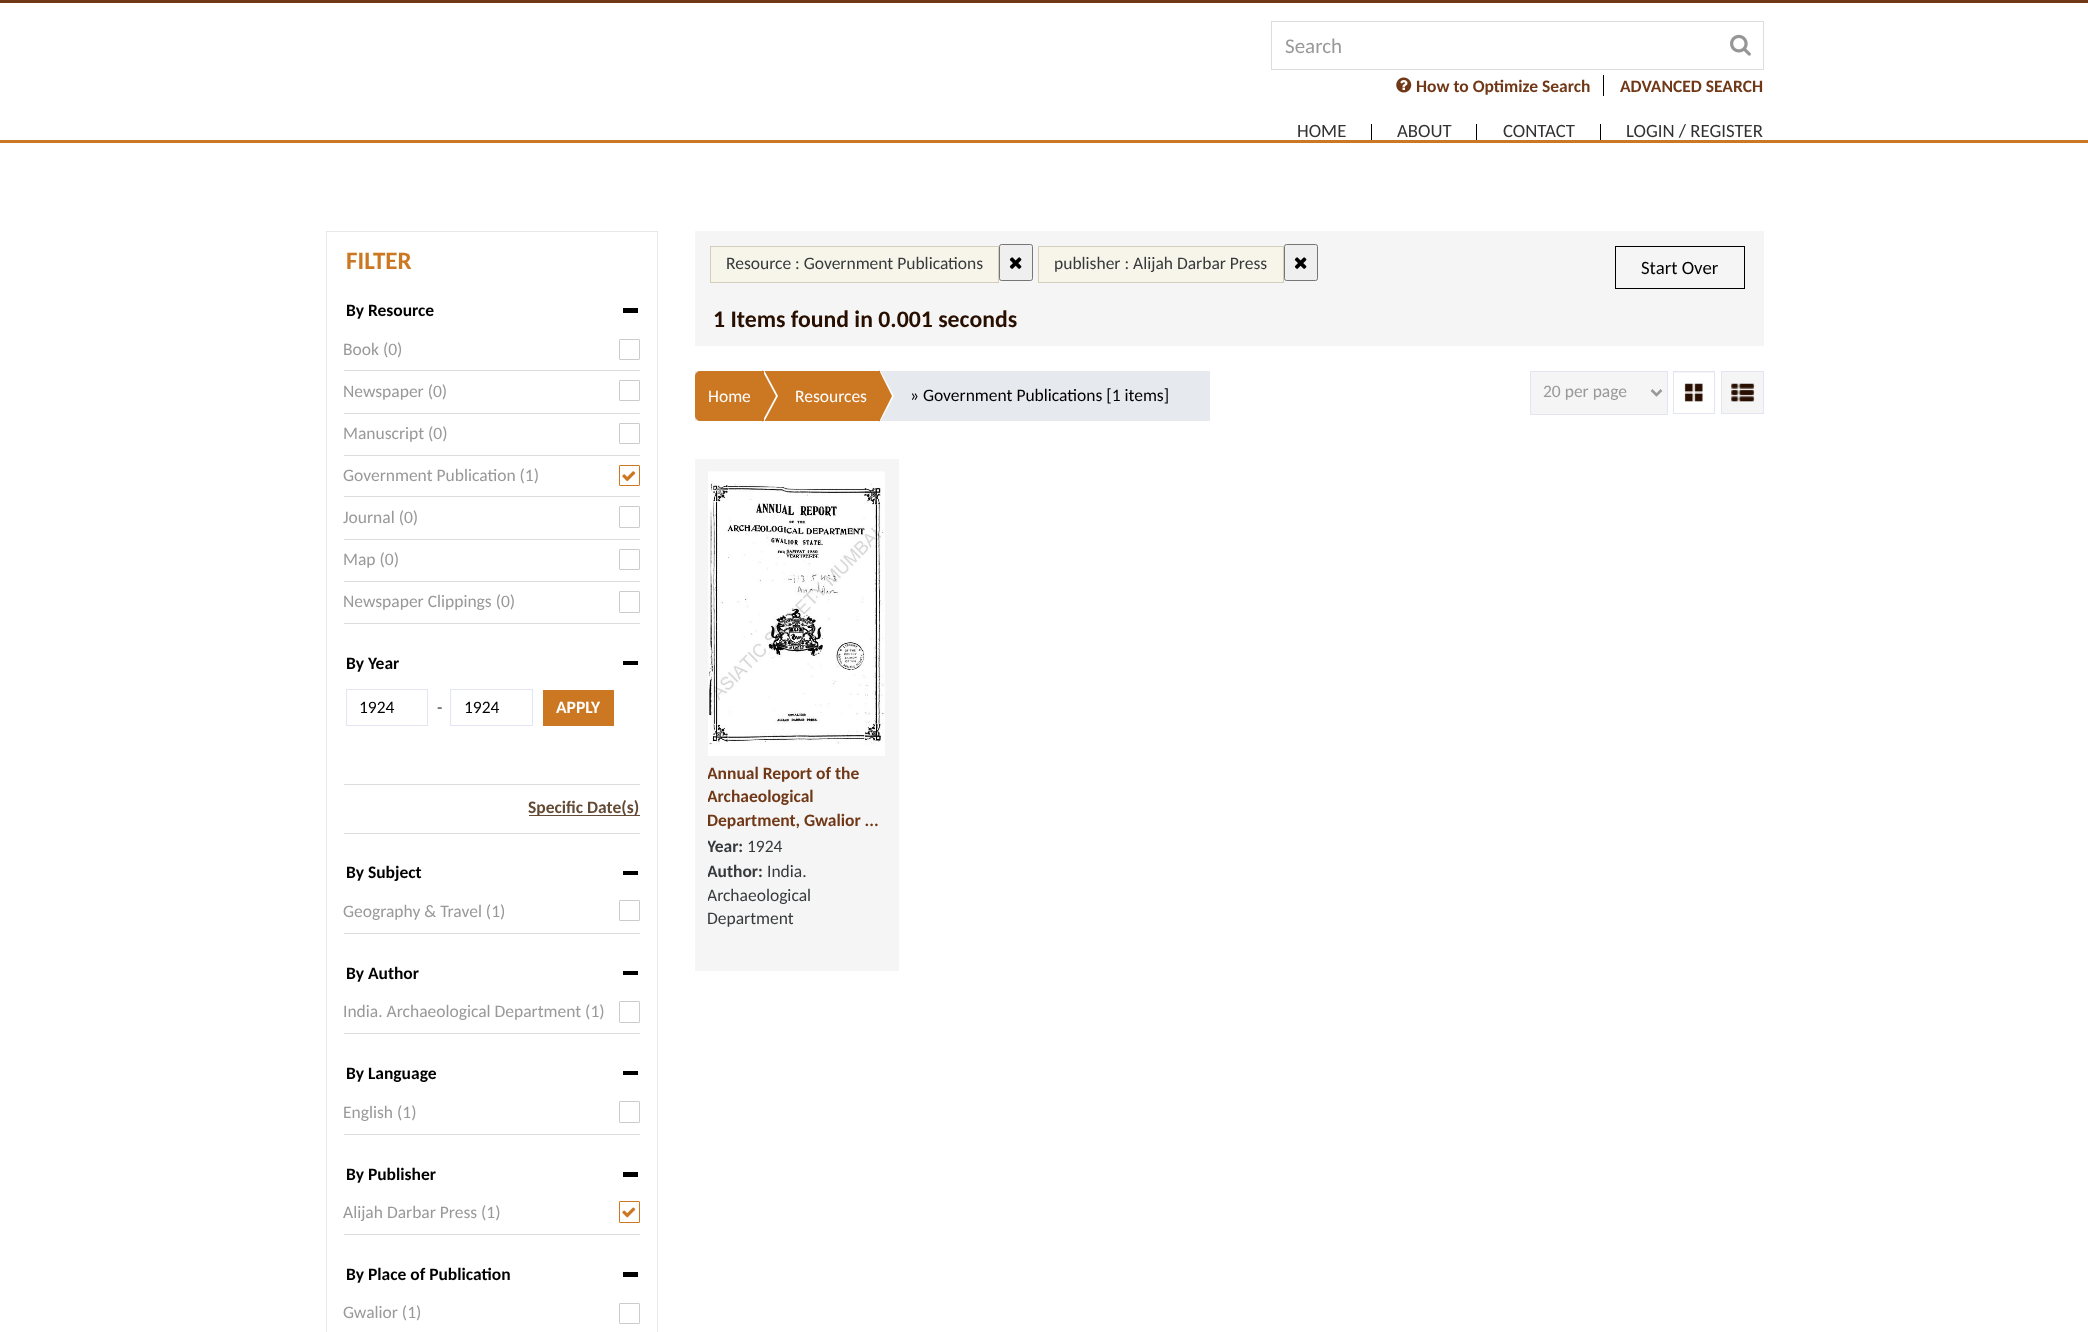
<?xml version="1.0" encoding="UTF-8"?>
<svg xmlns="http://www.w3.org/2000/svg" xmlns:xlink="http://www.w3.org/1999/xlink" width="2088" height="1332">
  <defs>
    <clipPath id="clip1"><rect x="708" y="763" width="178" height="70" /></clipPath>
    <clipPath id="clip2"><rect x="708" y="835" width="178" height="24" /></clipPath>
    <clipPath id="clip3"><rect x="708" y="861" width="178" height="70" /></clipPath>
  </defs>
  <rect width="100%" height="100%" fill="#ffffff" />
  <rect width="2088" height="3" fill="#703817" />
  <rect x="1271.5" y="21.5" width="492" height="48" fill="none" stroke="#dddddd" />
  <image x="1730" y="34" width="21" height="22" xlink:href="image1.png" />
  <rect x="1603" y="75" width="1" height="21" fill="#000000" />
  <image x="1396" y="77" width="16" height="16" xlink:href="image2.png" />
  <rect x="1371" y="124" width="1" height="16" fill="#000000" />
  <rect x="1476" y="124" width="1" height="16" fill="#000000" />
  <rect x="1600" y="124" width="1" height="16" fill="#000000" />
  <rect y="140" width="2088" height="3" fill="#cc7722" />
  <rect x="326.5" y="231.5" width="331" height="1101" fill="none" stroke="#e8e8e8" />
  <rect x="623" y="308" width="15" height="5" fill="#000000" />
  <rect x="344" y="370" width="296" height="1" fill="#dddddd" />
  <rect x="619.5" y="339.5" width="20" height="20" rx="0.5" fill="none" stroke="#cccccc" />
  <rect x="344" y="413" width="296" height="1" fill="#dddddd" />
  <rect x="619.5" y="380.5" width="20" height="20" rx="0.5" fill="none" stroke="#cccccc" />
  <rect x="344" y="455" width="296" height="1" fill="#dddddd" />
  <rect x="619.5" y="423.5" width="20" height="20" rx="0.5" fill="none" stroke="#cccccc" />
  <rect x="344" y="496" width="296" height="1" fill="#dddddd" />
  <rect x="619.5" y="465.5" width="20" height="20" rx="0.5" fill="none" stroke="#cc7722" />
  <image x="622" y="471" width="14" height="11" xlink:href="image3.png" />
  <rect x="344" y="539" width="296" height="1" fill="#dddddd" />
  <rect x="619.5" y="506.5" width="20" height="21" rx="0.5" fill="none" stroke="#cccccc" />
  <rect x="344" y="581" width="296" height="1" fill="#dddddd" />
  <rect x="619.5" y="549.5" width="20" height="20" rx="0.5" fill="none" stroke="#cccccc" />
  <rect x="344" y="623" width="296" height="1" fill="#dddddd" />
  <rect x="619.5" y="591.5" width="20" height="21" rx="0.5" fill="none" stroke="#cccccc" />
  <rect x="623" y="661" width="15" height="4" fill="#000000" />
  <rect x="346.5" y="689.5" width="81" height="36" fill="none" stroke="#e3e5f3" />
  <rect x="450.5" y="689.5" width="82" height="36" fill="none" stroke="#e3e5f3" />
  <rect x="543" y="690" width="71" height="36" fill="#cc7722" />
  <rect x="344" y="784" width="296" height="1" fill="#dddddd" />
  <rect x="344" y="833" width="296" height="1" fill="#dddddd" />
  <rect x="529" y="815" width="111" height="1" fill="#634a35" />
  <rect x="623" y="871" width="15" height="4" fill="#000000" />
  <rect x="344" y="933" width="296" height="1" fill="#dddddd" />
  <rect x="619.5" y="900.5" width="20" height="20" rx="0.5" fill="none" stroke="#cccccc" />
  <rect x="623" y="971" width="15" height="4" fill="#000000" />
  <rect x="344" y="1033" width="296" height="1" fill="#dddddd" />
  <rect x="619.5" y="1001.5" width="20" height="21" rx="0.5" fill="none" stroke="#cccccc" />
  <rect x="623" y="1071" width="15" height="4" fill="#000000" />
  <rect x="344" y="1134" width="296" height="1" fill="#dddddd" />
  <rect x="619.5" y="1101.5" width="20" height="21" rx="0.5" fill="none" stroke="#cccccc" />
  <rect x="623" y="1172" width="15" height="5" fill="#000000" />
  <rect x="344" y="1234" width="296" height="1" fill="#dddddd" />
  <rect x="619.5" y="1201.5" width="20" height="21" rx="0.5" fill="none" stroke="#cc7722" />
  <image x="622" y="1207" width="14" height="11" xlink:href="image4.png" />
  <rect x="623" y="1272" width="15" height="5" fill="#000000" />
  <rect x="619.5" y="1303.5" width="20" height="20" rx="0.5" fill="none" stroke="#cccccc" />
  <rect x="695" y="231" width="1069" height="115" fill="#f5f5f5" />
  <rect x="710.5" y="246.5" width="288" height="36" fill="#f7f5ea" stroke="#d3cfbc" />
  <rect x="999.5" y="244.5" width="33" height="36" rx="2" fill="#efefef" stroke="#767676" />
  <image x="1009" y="257" width="13" height="12" xlink:href="image5.png" />
  <rect x="1038.5" y="246.5" width="245" height="36" fill="#f7f5ea" stroke="#d3cfbc" />
  <rect x="1284.5" y="244.5" width="33" height="36" rx="2" fill="#efefef" stroke="#767676" />
  <image x="1294" y="257" width="13" height="12" xlink:href="image5.png" />
  <rect x="1615.5" y="246.5" width="129" height="42" fill="none" stroke="#000000" />
  <rect x="695" y="371" width="515" height="50" fill="#e6e9ed" />
  <path d="M 700 371.5 h 64.5 v 49 h -64.5 c -2.5 0 -4.5 -2 -4.5 -4.5 v -40 c 0 -2.5 2 -4.5 4.5 -4.5 z" fill="#cc7722" stroke="#cc7722" />
  <rect x="765" y="371" width="116" height="50" fill="#cc7722" />
  <path d="M 764 422 v -52 l 14 26 z" fill="#ffffff" />
  <path d="M 762 422 v -52 l 14 26 z" fill="#cc7722" />
  <path d="M 880 422 v -52 l 14 26 z" fill="#ffffff" />
  <path d="M 879 422 v -52 l 13 26 z" fill="#cc7722" />
  <rect x="1530.5" y="371.5" width="137" height="43" fill="#f5f5f5" stroke="#e3e5f3" />
  <path d="M 1651.5 390 l 5 5 l 5 -5" fill="none" stroke="#999999" stroke-width="2.5" />
  <rect x="1674" y="372" width="40" height="1" fill="#f5f5f5" />
  <rect x="1673.5" y="371.5" width="41" height="42" fill="none" stroke="#e3e5f3" />
  <image x="1684" y="383" width="19" height="19" xlink:href="image6.png" />
  <rect x="1721.5" y="371.5" width="42" height="42" fill="#f5f5f5" stroke="#e3e5f3" />
  <image x="1731" y="383" width="24" height="19" xlink:href="image7.png" />
  <rect x="695" y="459" width="204" height="512" fill="#f5f5f5" />
  <image x="708" y="471" width="177" height="285" xlink:href="image8.png" />
  <text x="1285" y="53" style="font-family: Carlito; font-size: 21px; fill: #999999">Search</text>
  <text x="1416" y="92" style="font-family: Carlito; font-size: 17.5px; font-weight: bold; fill: #703817">How to Optimize Search</text>
  <text x="1620" y="92" style="font-family: Carlito; font-size: 17.5px; font-weight: bold; fill: #703817">ADVANCED SEARCH</text>
  <text x="1297" y="137" style="font-family: Carlito; font-size: 18.75px; fill: #323232">HOME</text>
  <text x="1397" y="137" style="font-family: Carlito; font-size: 18.75px; fill: #323232">ABOUT</text>
  <text x="1503" y="137" style="font-family: Carlito; font-size: 18.75px; fill: #323232">CONTACT</text>
  <text x="1626" y="137" style="font-family: Carlito; font-size: 18.75px; fill: #323232">LOGIN / REGISTER</text>
  <text x="346" y="269" style="font-family: Carlito; font-size: 25px; font-weight: bold; fill: #cc7722">FILTER</text>
  <text x="346" y="316" style="font-family: Carlito; font-size: 17.5px; font-weight: bold; fill: #000000">By Resource</text>
  <text x="343" y="355" style="font-family: Carlito; font-size: 17.5px; fill: #999999">Book (0)</text>
  <text x="343" y="397" style="font-family: Carlito; font-size: 17.5px; fill: #999999">Newspaper (0)</text>
  <text x="343" y="439" style="font-family: Carlito; font-size: 17.5px; fill: #999999">Manuscript (0)</text>
  <text x="343" y="481" style="font-family: Carlito; font-size: 17.5px; fill: #999999">Government Publication (1)</text>
  <text x="343" y="523" style="font-family: Carlito; font-size: 17.5px; fill: #999999">Journal (0)</text>
  <text x="343" y="565" style="font-family: Carlito; font-size: 17.5px; fill: #999999">Map (0)</text>
  <text x="343" y="607" style="font-family: Carlito; font-size: 17.5px; fill: #999999">Newspaper Clippings (0)</text>
  <text x="346" y="669" style="font-family: Carlito; font-size: 17.5px; font-weight: bold; fill: #000000">By Year</text>
  <text x="359" y="713" style="font-family: Carlito; font-size: 17.5px; fill: #000000">1924</text>
  <text x="437" y="713" style="font-family: Carlito; font-size: 17.5px; fill: #373a3c">-</text>
  <text x="464" y="713" style="font-family: Carlito; font-size: 17.5px; fill: #000000">1924</text>
  <text x="556" y="713" style="font-family: Carlito; font-size: 17.5px; font-weight: bold; fill: #ffffff">APPLY</text>
  <text x="528" y="813" style="font-family: Carlito; font-size: 17.5px; font-weight: bold; fill: #634a35">Specific Date(s)</text>
  <text x="346" y="878" style="font-family: Carlito; font-size: 17.5px; font-weight: bold; fill: #000000">By Subject</text>
  <text x="343" y="917" style="font-family: Carlito; font-size: 17.5px; fill: #999999">Geography &amp; Travel (1)</text>
  <text x="346" y="979" style="font-family: Carlito; font-size: 17.5px; font-weight: bold; fill: #000000">By Author</text>
  <text x="343" y="1017" style="font-family: Carlito; font-size: 17.5px; fill: #999999">India. Archaeological Department (1)</text>
  <text x="346" y="1079" style="font-family: Carlito; font-size: 17.5px; font-weight: bold; fill: #000000">By Language</text>
  <text x="343" y="1118" style="font-family: Carlito; font-size: 17.5px; fill: #999999">English (1)</text>
  <text x="346" y="1180" style="font-family: Carlito; font-size: 17.5px; font-weight: bold; fill: #000000">By Publisher</text>
  <text x="343" y="1218" style="font-family: Carlito; font-size: 17.5px; fill: #999999">Alijah Darbar Press (1)</text>
  <text x="346" y="1280" style="font-family: Carlito; font-size: 17.5px; font-weight: bold; fill: #000000">By Place of Publication</text>
  <text x="343" y="1318" style="font-family: Carlito; font-size: 17.5px; fill: #999999">Gwalior (1)</text>
  <text x="726" y="269" style="font-family: Carlito; font-size: 17.5px; fill: #373a3c">Resource : Government Publications</text>
  <text x="1054" y="269" style="font-family: Carlito; font-size: 17.5px; fill: #373a3c">publisher : Alijah Darbar Press</text>
  <text x="1641" y="274" style="font-family: Carlito; font-size: 18.75px; fill: #000000">Start Over</text>
  <text x="713" y="327" style="font-family: Carlito; font-size: 23.75px; font-weight: bold; fill: #280f00">1 Items found in 0.001 seconds</text>
  <text x="708" y="402" style="font-family: Carlito; font-size: 17.5px; fill: #ffffff">Home</text>
  <text x="795" y="402" style="font-family: Carlito; font-size: 17.5px; fill: #ffffff">Resources</text>
  <text x="910" y="401" style="font-family: Carlito; font-size: 17.5px; fill: #000000">» Government Publications [1 items]</text>
  <text x="1543" y="397" style="font-family: Carlito; font-size: 17.5px; fill: #999999">20 per page</text>
  <g clip-path="url(#clip1)">
    <text x="707" y="779" style="font-family: Carlito; font-size: 17.5px; font-weight: bold; fill: #703817">Annual Report of the</text>
    <text x="707" y="802" style="font-family: Carlito; font-size: 17.5px; font-weight: bold; fill: #703817">Archaeological</text>
    <text x="707" y="826" style="font-family: Carlito; font-size: 17.5px; font-weight: bold; fill: #703817">Department, Gwalior ...</text>
  </g>
  <g clip-path="url(#clip2)">
    <text x="707" y="852" style="font-family: Carlito; font-size: 17.5px; font-weight: bold; fill: #373a3c">Year:</text>
  </g>
  <text x="747" y="852" style="font-family: Carlito; font-size: 17.5px; fill: #373a3c">1924</text>
  <g clip-path="url(#clip3)">
    <text x="707" y="877" style="font-family: Carlito; font-size: 17.5px; font-weight: bold; fill: #373a3c">Author:</text>
  </g>
  <text x="767" y="877" style="font-family: Carlito; font-size: 17.5px; fill: #373a3c">India.</text>
  <g clip-path="url(#clip3)">
    <text x="707" y="901" style="font-family: Carlito; font-size: 17.5px; fill: #373a3c">Archaeological</text>
  </g>
  <text x="707" y="924" style="font-family: Carlito; font-size: 17.5px; fill: #373a3c">Department</text>
</svg>
